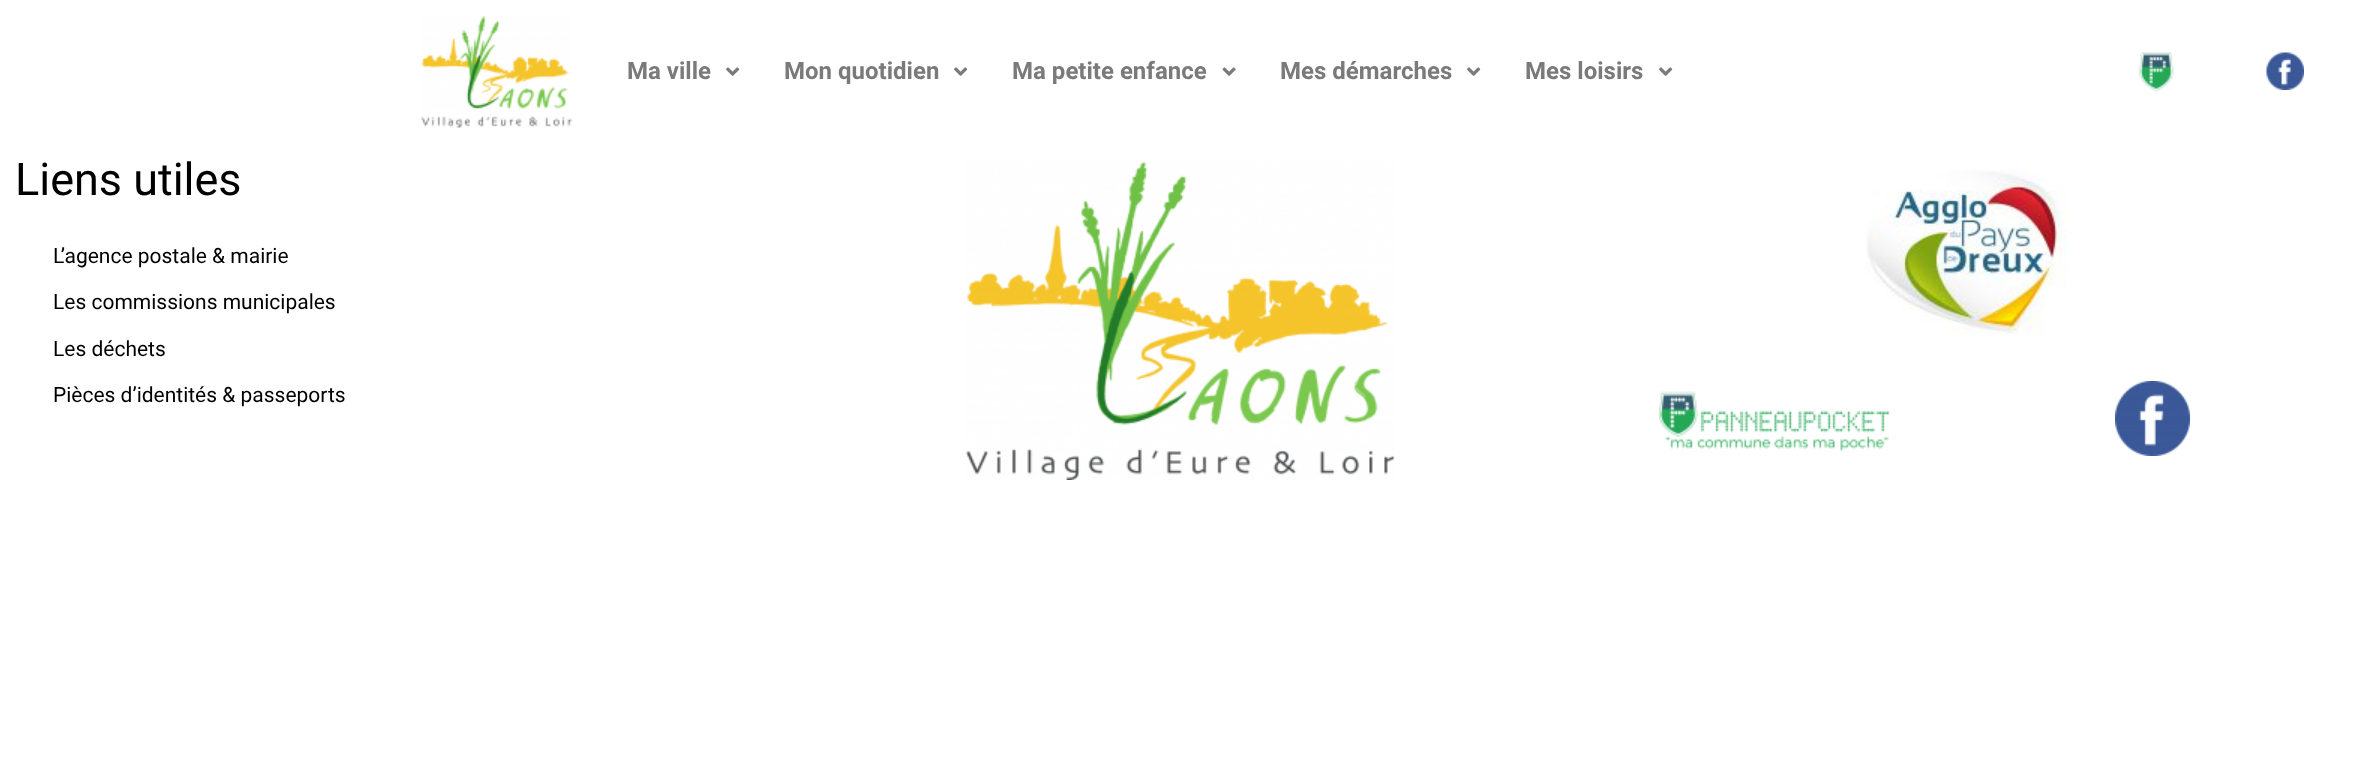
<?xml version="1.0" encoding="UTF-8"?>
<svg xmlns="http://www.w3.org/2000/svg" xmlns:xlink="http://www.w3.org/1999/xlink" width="2356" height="775">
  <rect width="100%" height="100%" fill="#ffffff" />
  <image x="421" y="16" width="151" height="112" xlink:href="image1.png" />
  <image x="726" y="67" width="14" height="9" xlink:href="image2.png" />
  <image x="954" y="67" width="14" height="9" xlink:href="image2.png" />
  <image x="1222" y="67" width="14" height="9" xlink:href="image3.png" />
  <image x="1467" y="67" width="14" height="9" xlink:href="image2.png" />
  <image x="1659" y="67" width="14" height="9" xlink:href="image2.png" />
  <image x="2138" y="52" width="36" height="40" xlink:href="image4.png" />
  <image x="2266" y="52" width="38" height="38" xlink:href="image5.png" />
  <image x="965" y="161" width="430" height="319" xlink:href="image6.png" />
  <image x="1866" y="169" width="201" height="167" xlink:href="image7.png" />
  <image x="1658" y="391" width="232" height="61" xlink:href="image8.png" />
  <image x="2115" y="381" width="75" height="75" xlink:href="image9.png" />
  <text x="627" y="79" style="font-family: Roboto; font-size: 24px; font-weight: bold; fill: #7a7a7a">Ma ville</text>
  <text x="784" y="79" style="font-family: Roboto; font-size: 24px; font-weight: bold; fill: #7a7a7a">Mon quotidien</text>
  <text x="1012" y="79" style="font-family: Roboto; font-size: 24px; font-weight: bold; fill: #7a7a7a">Ma petite enfance</text>
  <text x="1280" y="79" style="font-family: Roboto; font-size: 24px; font-weight: bold; fill: #7a7a7a">Mes démarches</text>
  <text x="1525" y="79" style="font-family: Roboto; font-size: 24px; font-weight: bold; fill: #7a7a7a">Mes loisirs</text>
  <text x="15" y="195" style="font-family: Roboto; font-size: 45px; fill: #000000">Liens utiles</text>
  <text x="53" y="263" style="font-family: Roboto; font-size: 21px; fill: #000000">L’agence postale &amp; mairie</text>
  <text x="53" y="309" style="font-family: Roboto; font-size: 21px; fill: #000000">Les commissions municipales</text>
  <text x="53" y="356" style="font-family: Roboto; font-size: 21px; fill: #000000">Les déchets</text>
  <text x="53" y="402" style="font-family: Roboto; font-size: 21px; fill: #000000">Pièces d’identités &amp; passeports</text>
</svg>
